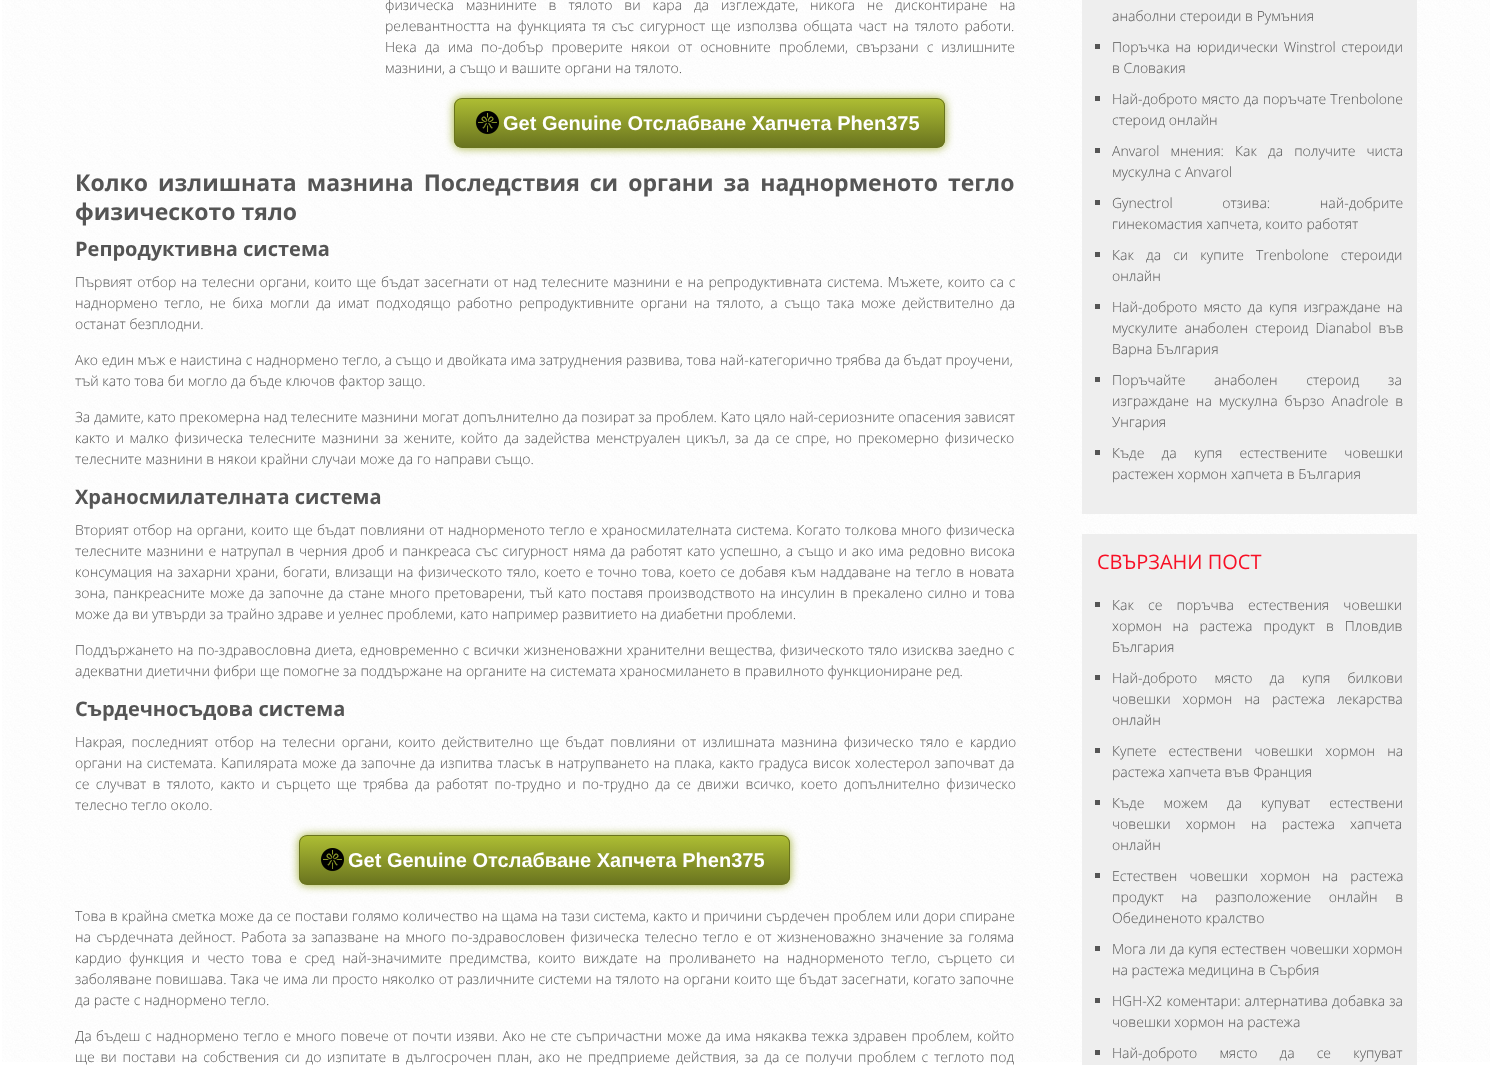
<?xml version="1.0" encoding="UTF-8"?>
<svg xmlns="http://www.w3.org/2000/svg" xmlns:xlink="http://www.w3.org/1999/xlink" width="1492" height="1065">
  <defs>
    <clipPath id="clip1"><rect x="454" y="98" width="491" height="50" rx="8" /></clipPath>
    <linearGradient id="g1" gradientUnits="userSpaceOnUse" x1="700" y1="99" x2="700" y2="147"><stop offset="0" stop-color="#adbd33" /><stop offset="1" stop-color="#6a741f" /></linearGradient>
    <clipPath id="clip2"><rect x="299" y="835" width="491" height="50" rx="8" /></clipPath>
    <linearGradient id="g2" gradientUnits="userSpaceOnUse" x1="545" y1="836" x2="545" y2="884"><stop offset="0" stop-color="#adbd33" /><stop offset="1" stop-color="#6a741f" /></linearGradient>
  </defs>
  <rect width="100%" height="100%" fill="#ffffff" />
  <image x="2" y="0" width="1488" height="1062" xlink:href="image1.png" />
  <rect x="454" y="98" width="491" height="50" rx="8" fill="#a0ae2f" filter="blur(5px)" />
  <g clip-path="url(#clip1)">
    <rect x="454" y="99" width="491" height="48" fill="url(#g1)" />
  </g>
  <rect x="454.5" y="98.5" width="490" height="49" rx="7.5" fill="none" stroke="#6a741f" />
  <image x="475" y="111" width="24" height="24" xlink:href="image2.png" />
  <rect x="299" y="835" width="491" height="50" rx="8" fill="#a0ae2f" filter="blur(5px)" />
  <g clip-path="url(#clip2)">
    <rect x="299" y="836" width="491" height="48" fill="url(#g2)" />
  </g>
  <rect x="299.5" y="835.5" width="490" height="49" rx="7.5" fill="none" stroke="#6a741f" />
  <image x="320" y="848" width="24" height="24" xlink:href="image2.png" />
  <rect x="1082" width="335" height="514" fill="#eeeeee" />
  <rect x="1095" y="44" width="5" height="5" fill="#555555" />
  <rect x="1095" y="96" width="5" height="5" fill="#555555" />
  <rect x="1095" y="148" width="5" height="5" fill="#555555" />
  <rect x="1095" y="200" width="5" height="5" fill="#555555" />
  <rect x="1095" y="252" width="5" height="5" fill="#555555" />
  <rect x="1095" y="304" width="5" height="5" fill="#555555" />
  <rect x="1095" y="377" width="5" height="5" fill="#555555" />
  <rect x="1095" y="450" width="5" height="5" fill="#555555" />
  <rect x="1082" y="534" width="335" height="531" fill="#eeeeee" />
  <rect x="1095" y="602" width="5" height="5" fill="#555555" />
  <rect x="1095" y="675" width="5" height="5" fill="#555555" />
  <rect x="1095" y="748" width="5" height="5" fill="#555555" />
  <rect x="1095" y="800" width="5" height="5" fill="#555555" />
  <rect x="1095" y="873" width="5" height="5" fill="#555555" />
  <rect x="1095" y="946" width="5" height="5" fill="#555555" />
  <rect x="1095" y="998" width="5" height="5" fill="#555555" />
  <rect x="1095" y="1050" width="5" height="5" fill="#555555" />
  <text x="385" y="10" word-spacing="8.25" style="font-family: Open Sans; font-size: 14px; font-weight: 300; fill: #555555">физическа мазнините в тялото ви кара да изглеждате, никога не дисконтиране на</text>
  <text x="385" y="31" word-spacing="2.25" style="font-family: Open Sans; font-size: 14px; font-weight: 300; fill: #555555">релевантността на функцията тя със сигурност ще използва общата част на тялото работи.</text>
  <text x="385" y="52" word-spacing="4.4" style="font-family: Open Sans; font-size: 14px; font-weight: 300; fill: #555555">Нека да има по-добър проверите някои от основните проблеми, свързани с излишните</text>
  <text x="385" y="73" style="font-family: Open Sans; font-size: 14px; font-weight: 300; fill: #555555">мазнини, а също и вашите органи на тялото.</text>
  <text x="503" y="130" style="font-family: Liberation Sans; font-size: 20px; font-weight: bold; fill: #ffffff">Get Genuine Отслабване Хапчета Phen375</text>
  <text x="75" y="191" word-spacing="4" style="font-family: Open Sans; font-size: 23px; font-weight: bold; fill: #555555">Колко излишната мазнина Последствия си органи за наднорменото тегло</text>
  <text x="75" y="220" style="font-family: Open Sans; font-size: 23px; font-weight: bold; fill: #555555">физическото тяло</text>
  <text x="75" y="256" style="font-family: Open Sans; font-size: 20px; font-weight: bold; fill: #555555">Репродуктивна система</text>
  <text x="75" y="287" word-spacing="1.2" style="font-family: Open Sans; font-size: 14px; font-weight: 300; fill: #555555">Първият отбор на телесни органи, които ще бъдат засегнати от над телесните мазнини е на репродуктивната система. Мъжете, които са с</text>
  <text x="75" y="308" word-spacing="3" style="font-family: Open Sans; font-size: 14px; font-weight: 300; fill: #555555">наднормено тегло, не биха могли да имат подходящо работно репродуктивните органи на тялото, а също така може действително да</text>
  <text x="75" y="329" style="font-family: Open Sans; font-size: 14px; font-weight: 300; fill: #555555">останат безплодни.</text>
  <text x="75" y="365" style="font-family: Open Sans; font-size: 14px; font-weight: 300; fill: #555555">Ако един мъж е наистина с наднормено тегло, а също и двойката има затруднения развива, това най-категорично трябва да бъдат проучени,</text>
  <text x="75" y="386" style="font-family: Open Sans; font-size: 14px; font-weight: 300; fill: #555555">тъй като това би могло да бъде ключов фактор защо.</text>
  <text x="75" y="422" style="font-family: Open Sans; font-size: 14px; font-weight: 300; fill: #555555">За дамите, като прекомерна над телесните мазнини могат допълнително да позират за проблем. Като цяло най-сериозните опасения зависят</text>
  <text x="75" y="443" word-spacing="2.1" style="font-family: Open Sans; font-size: 14px; font-weight: 300; fill: #555555">както и малко физическа телесните мазнини за жените, който да задейства менструален цикъл, за да се спре, но прекомерно физическо</text>
  <text x="75" y="464" style="font-family: Open Sans; font-size: 14px; font-weight: 300; fill: #555555">телесните мазнини в някои крайни случаи може да го направи също.</text>
  <text x="75" y="504" style="font-family: Open Sans; font-size: 20px; font-weight: bold; fill: #555555">Храносмилателната система</text>
  <text x="75" y="535" word-spacing="0.75" style="font-family: Open Sans; font-size: 14px; font-weight: 300; fill: #555555">Вторият отбор на органи, които ще бъдат повлияни от наднорменото тегло е храносмилателната система. Когато толкова много физическа</text>
  <text x="75" y="556" word-spacing="1.15" style="font-family: Open Sans; font-size: 14px; font-weight: 300; fill: #555555">телесните мазнини е натрупал в черния дроб и панкреаса със сигурност няма да работят като успешно, а също и ако има редовно висока</text>
  <text x="75" y="577" word-spacing="1" style="font-family: Open Sans; font-size: 14px; font-weight: 300; fill: #555555">консумация на захарни храни, богати, влизащи на физическото тяло, което е точно това, което се добавя към наддаване на тегло в новата</text>
  <text x="75" y="598" word-spacing="1.1" style="font-family: Open Sans; font-size: 14px; font-weight: 300; fill: #555555">зона, панкреасните може да започне да стане много претоварени, тъй като поставя производството на инсулин в прекалено силно и това</text>
  <text x="75" y="619" style="font-family: Open Sans; font-size: 14px; font-weight: 300; fill: #555555">може да ви утвърди за трайно здраве и уелнес проблеми, като например развитието на диабетни проблеми.</text>
  <text x="75" y="655" word-spacing="0.6" style="font-family: Open Sans; font-size: 14px; font-weight: 300; fill: #555555">Поддържането на по-здравословна диета, едновременно с всички жизненоважни хранителни вещества, физическото тяло изисква заедно с</text>
  <text x="75" y="676" style="font-family: Open Sans; font-size: 14px; font-weight: 300; fill: #555555">адекватни диетични фибри ще помогне за поддържане на органите на системата храносмилането в правилното функциониране ред.</text>
  <text x="75" y="716" style="font-family: Open Sans; font-size: 20px; font-weight: bold; fill: #555555">Сърдечносъдова система</text>
  <text x="75" y="747" word-spacing="2.75" style="font-family: Open Sans; font-size: 14px; font-weight: 300; fill: #555555">Накрая, последният отбор на телесни органи, които действително ще бъдат повлияни от излишната мазнина физическо тяло е кардио</text>
  <text x="75" y="768" word-spacing="0.9" style="font-family: Open Sans; font-size: 14px; font-weight: 300; fill: #555555">органи на системата. Капилярата може да започне да изпитва тласък в натрупването на плака, както градуса висок холестерол започват да</text>
  <text x="75" y="789" word-spacing="2.75" style="font-family: Open Sans; font-size: 14px; font-weight: 300; fill: #555555">се случват в тялото, както и сърцето ще трябва да работят по-трудно и по-трудно да се движи всичко, което допълнително физическо</text>
  <text x="75" y="810" style="font-family: Open Sans; font-size: 14px; font-weight: 300; fill: #555555">телесно тегло около.</text>
  <text x="348" y="867" style="font-family: Liberation Sans; font-size: 20px; font-weight: bold; fill: #ffffff">Get Genuine Отслабване Хапчета Phen375</text>
  <text x="75" y="921" word-spacing="0.15" style="font-family: Open Sans; font-size: 14px; font-weight: 300; fill: #555555">Това в крайна сметка може да се постави голямо количество на щама на тази система, както и причини сърдечен проблем или дори спиране</text>
  <text x="75" y="942" word-spacing="1.8" style="font-family: Open Sans; font-size: 14px; font-weight: 300; fill: #555555">на сърдечната дейност. Работа за запазване на много по-здравословен физическа телесно тегло е от жизненоважно значение за голяма</text>
  <text x="75" y="963" word-spacing="3.9" style="font-family: Open Sans; font-size: 14px; font-weight: 300; fill: #555555">кардио функция и често това е сред най-значимите предимства, които виждате на проливането на наднорменото тегло, сърцето си</text>
  <text x="75" y="984" word-spacing="0.3" style="font-family: Open Sans; font-size: 14px; font-weight: 300; fill: #555555">заболяване повишава. Така че има ли просто няколко от различните системи на тялото на органи които ще бъдат засегнати, когато започне</text>
  <text x="75" y="1005" style="font-family: Open Sans; font-size: 14px; font-weight: 300; fill: #555555">да расте с наднормено тегло.</text>
  <text x="75" y="1041" word-spacing="0.9" style="font-family: Open Sans; font-size: 14px; font-weight: 300; fill: #555555">Да бъдеш с наднормено тегло е много повече от почти изяви. Ако не сте съпричастни може да има някаква тежка здравен проблем, който</text>
  <text x="75" y="1062" word-spacing="2.1" style="font-family: Open Sans; font-size: 14px; font-weight: 300; fill: #555555">ще ви постави на собствения си до изпитате в дългосрочен план, ако не предприеме действия, за да се получи проблем с теглото под</text>
  <text x="1112" y="21" style="font-family: Open Sans; font-size: 14px; font-weight: 300; fill: #555555">анаболни стероиди в Румъния</text>
  <text x="1112" y="52" word-spacing="2" style="font-family: Open Sans; font-size: 14px; font-weight: 300; fill: #555555">Поръчка на юридически Winstrol стероиди</text>
  <text x="1112" y="73" style="font-family: Open Sans; font-size: 14px; font-weight: 300; fill: #555555">в Словакия</text>
  <text x="1112" y="104" word-spacing="0.5" style="font-family: Open Sans; font-size: 14px; font-weight: 300; fill: #555555">Най-доброто място да поръчате Trenbolone</text>
  <text x="1112" y="125" style="font-family: Open Sans; font-size: 14px; font-weight: 300; fill: #555555">стероид онлайн</text>
  <text x="1112" y="156" word-spacing="7.5" style="font-family: Open Sans; font-size: 14px; font-weight: 300; fill: #555555">Anvarol мнения: Как да получите чиста</text>
  <text x="1112" y="177" style="font-family: Open Sans; font-size: 14px; font-weight: 300; fill: #555555">мускулна с Anvarol</text>
  <text x="1112" y="208" word-spacing="46" style="font-family: Open Sans; font-size: 14px; font-weight: 300; fill: #555555">Gynectrol отзива: най-добрите</text>
  <text x="1112" y="229" style="font-family: Open Sans; font-size: 14px; font-weight: 300; fill: #555555">гинекомастия хапчета, които работят</text>
  <text x="1112" y="260" word-spacing="8.5" style="font-family: Open Sans; font-size: 14px; font-weight: 300; fill: #555555">Как да си купите Trenbolone стероиди</text>
  <text x="1112" y="281" style="font-family: Open Sans; font-size: 14px; font-weight: 300; fill: #555555">онлайн</text>
  <text x="1112" y="312" word-spacing="2.5" style="font-family: Open Sans; font-size: 14px; font-weight: 300; fill: #555555">Най-доброто място да купя изграждане на</text>
  <text x="1112" y="333" word-spacing="3.5" style="font-family: Open Sans; font-size: 14px; font-weight: 300; fill: #555555">мускулите анаболен стероид Dianabol във</text>
  <text x="1112" y="354" style="font-family: Open Sans; font-size: 14px; font-weight: 300; fill: #555555">Варна България</text>
  <text x="1112" y="385" word-spacing="25" style="font-family: Open Sans; font-size: 14px; font-weight: 300; fill: #555555">Поръчайте анаболен стероид за</text>
  <text x="1112" y="406" word-spacing="3.25" style="font-family: Open Sans; font-size: 14px; font-weight: 300; fill: #555555">изграждане на мускулна бързо Anadrole в</text>
  <text x="1112" y="427" style="font-family: Open Sans; font-size: 14px; font-weight: 300; fill: #555555">Унгария</text>
  <text x="1112" y="458" word-spacing="13.5" style="font-family: Open Sans; font-size: 14px; font-weight: 300; fill: #555555">Къде да купя естествените човешки</text>
  <text x="1112" y="479" style="font-family: Open Sans; font-size: 14px; font-weight: 300; fill: #555555">растежен хормон хапчета в България</text>
  <text x="1097" y="569" style="font-family: Open Sans; font-size: 20px; fill: #f80f25">СВЪРЗАНИ ПОСТ</text>
  <text x="1112" y="610" word-spacing="10.5" style="font-family: Open Sans; font-size: 14px; font-weight: 300; fill: #555555">Как се поръчва естествения човешки</text>
  <text x="1112" y="631" word-spacing="7.25" style="font-family: Open Sans; font-size: 14px; font-weight: 300; fill: #555555">хормон на растежа продукт в Пловдив</text>
  <text x="1112" y="652" style="font-family: Open Sans; font-size: 14px; font-weight: 300; fill: #555555">България</text>
  <text x="1112" y="683" word-spacing="13.5" style="font-family: Open Sans; font-size: 14px; font-weight: 300; fill: #555555">Най-доброто място да купя билкови</text>
  <text x="1112" y="704" word-spacing="8.25" style="font-family: Open Sans; font-size: 14px; font-weight: 300; fill: #555555">човешки хормон на растежа лекарства</text>
  <text x="1112" y="725" style="font-family: Open Sans; font-size: 14px; font-weight: 300; fill: #555555">онлайн</text>
  <text x="1112" y="756" word-spacing="8.5" style="font-family: Open Sans; font-size: 14px; font-weight: 300; fill: #555555">Купете естествени човешки хормон на</text>
  <text x="1112" y="777" style="font-family: Open Sans; font-size: 14px; font-weight: 300; fill: #555555">растежа хапчета във Франция</text>
  <text x="1112" y="808" word-spacing="15.5" style="font-family: Open Sans; font-size: 14px; font-weight: 300; fill: #555555">Къде можем да купуват естествени</text>
  <text x="1112" y="829" word-spacing="11.5" style="font-family: Open Sans; font-size: 14px; font-weight: 300; fill: #555555">човешки хормон на растежа хапчета</text>
  <text x="1112" y="850" style="font-family: Open Sans; font-size: 14px; font-weight: 300; fill: #555555">онлайн</text>
  <text x="1112" y="881" word-spacing="8.5" style="font-family: Open Sans; font-size: 14px; font-weight: 300; fill: #555555">Естествен човешки хормон на растежа</text>
  <text x="1112" y="902" word-spacing="14" style="font-family: Open Sans; font-size: 14px; font-weight: 300; fill: #555555">продукт на разположение онлайн в</text>
  <text x="1112" y="923" style="font-family: Open Sans; font-size: 14px; font-weight: 300; fill: #555555">Обединеното кралство</text>
  <text x="1112" y="954" word-spacing="0.25" style="font-family: Open Sans; font-size: 14px; font-weight: 300; fill: #555555">Мога ли да купя естествен човешки хормон</text>
  <text x="1112" y="975" style="font-family: Open Sans; font-size: 14px; font-weight: 300; fill: #555555">на растежа медицина в Сърбия</text>
  <text x="1112" y="1006" word-spacing="0.5" style="font-family: Open Sans; font-size: 14px; font-weight: 300; fill: #555555">HGH-X2 коментари: алтернатива добавка за</text>
  <text x="1112" y="1027" style="font-family: Open Sans; font-size: 14px; font-weight: 300; fill: #555555">човешки хормон на растежа</text>
  <text x="1112" y="1058" word-spacing="18.5" style="font-family: Open Sans; font-size: 14px; font-weight: 300; fill: #555555">Най-доброто място да се купуват</text>
</svg>
